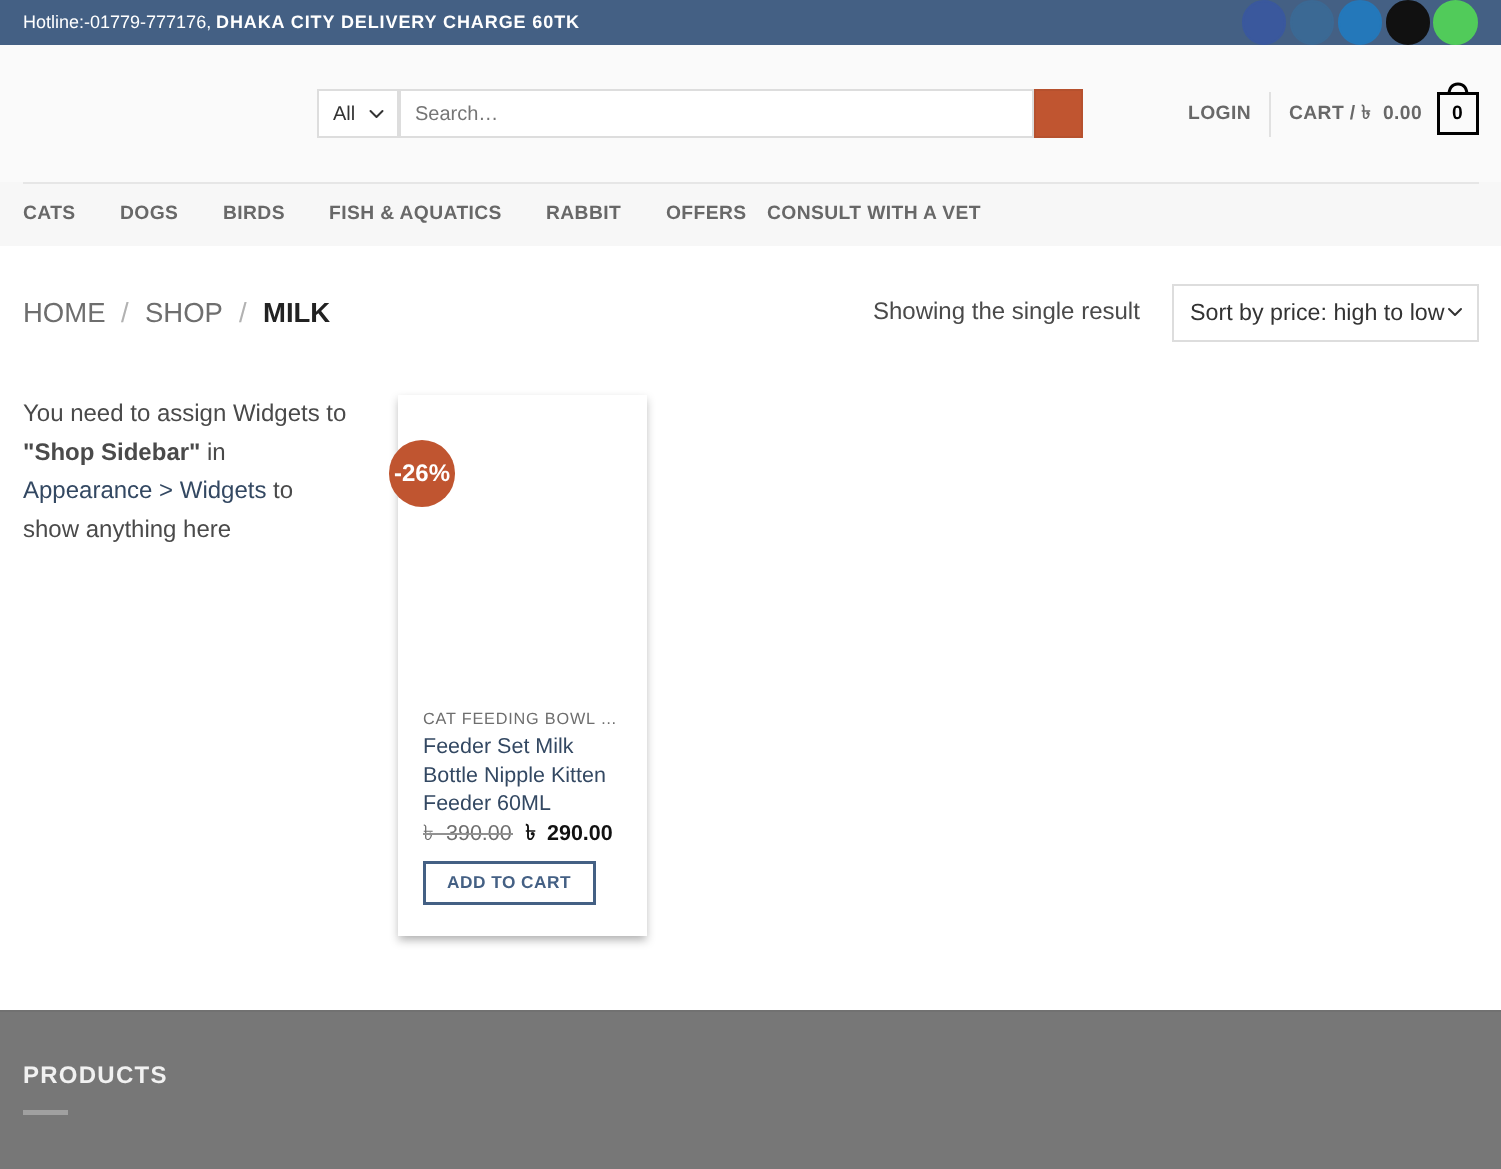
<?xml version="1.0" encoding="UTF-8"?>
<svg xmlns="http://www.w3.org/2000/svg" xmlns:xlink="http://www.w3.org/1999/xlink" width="1501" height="1169">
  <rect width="100%" height="100%" fill="#ffffff" />
  <rect width="1501" height="45" fill="#446084" />
  <rect x="1243" y="1" width="42" height="43" rx="21" fill="#3a589d" stroke="#3a589d" stroke-width="2" />
  <rect x="1291" y="1" width="42" height="43" rx="21" fill="#3b6994" stroke="#3b6994" stroke-width="2" />
  <rect x="1339" y="1" width="42" height="43" rx="21" fill="#2478ba" stroke="#2478ba" stroke-width="2" />
  <rect x="1387" y="1" width="42" height="43" rx="21" fill="#111111" stroke="#111111" stroke-width="2" />
  <circle cx="1455.5" cy="22.5" r="21.5" fill="#51cb5a" stroke="#51cb5a" stroke-width="2" />
  <rect y="45" width="1501" height="137" fill="#fafafa" />
  <rect x="319" y="91" width="78" height="45" fill="#ffffff" />
  <path d="M 370.5 111 l 6 6 l 6 -6" fill="none" stroke="#333333" stroke-width="2" stroke-linecap="round" stroke-linejoin="round" />
  <rect x="318" y="90" width="80" height="47" fill="none" stroke="#dddddd" stroke-width="2" />
  <rect x="400" y="90" width="633" height="47" fill="#ffffff" stroke="#dddddd" stroke-width="2" />
  <rect x="1035" y="90" width="47" height="47" fill="#c05530" stroke="#b6512e" stroke-width="2" />
  <rect x="1269" y="92" width="2" height="45" fill="#e1e1e1" />
  <rect x="1438.5" y="93.5" width="39" height="40" fill="none" stroke="#000000" stroke-width="3" />
  <path d="M 1458 82.5 c 7 0 10.5 5.5 10.5 12 h -21 c 0 -6.5 3.5 -12 10.5 -12 z m 0 3 c 5.5 0 7.5 4.5 7.5 9 h -15 c 0 -4.5 2 -9 7.5 -9 z" fill="#000000" fill-rule="evenodd" />
  <rect y="182" width="1501" height="64" fill="#f7f7f7" />
  <rect x="23" y="182" width="1456" height="2" fill="#e6e6e6" />
  <path d="M 1449 309 l 6 6 l 6 -6" fill="none" stroke="#333333" stroke-width="2" stroke-linecap="round" stroke-linejoin="round" />
  <rect x="1173" y="285" width="305" height="56" fill="none" stroke="#dddddd" stroke-width="2" />
  <rect x="398" y="399" width="249" height="542" fill="#000000" fill-opacity="0.23" filter="blur(4.5px)" />
  <rect x="404" y="405" width="237" height="530" fill="#000000" fill-opacity="0.16" filter="blur(4.5px)" />
  <rect x="398" y="395" width="249" height="541" fill="#ffffff" />
  <rect x="389" y="440" width="66" height="67" rx="33" fill="#c05530" />
  <rect x="424.5" y="862.5" width="170" height="41" fill="none" stroke="#446084" stroke-width="3" />
  <rect y="1012" width="1501" height="157" fill="#777777" />
  <rect y="1010" width="1501" height="2" fill="#717171" />
  <rect x="23" y="1110" width="45" height="5" fill="#a0a0a0" />
  <text x="23" y="28" style="font-family: Liberation Sans; font-size: 18px; fill: #ffffff">Hotline:-01779-777176,</text>
  <text x="216" y="28" style="font-family: Liberation Sans; font-size: 18px; font-weight: bold; letter-spacing: 0.9px; fill: #ffffff">DHAKA CITY DELIVERY CHARGE 60TK</text>
  <text x="333" y="120" style="font-family: Liberation Sans; font-size: 20px; fill: #333333">All</text>
  <text x="415" y="120" style="font-family: Liberation Sans; font-size: 20px; fill: #757575">Search…</text>
  <text x="1188" y="119" style="font-family: Liberation Sans; font-size: 19.25px; font-weight: bold; letter-spacing: 0.4px; fill: #686868">LOGIN</text>
  <text x="1289" y="119" style="font-family: Liberation Sans; font-size: 19.25px; font-weight: bold; letter-spacing: 0.4px; fill: #686868">CART /</text>
  <text x="1361" y="119" style="font-family: Lohit Bengali; font-size: 19.25px; font-weight: bold; letter-spacing: 0.4px; fill: #686868">৳</text>
  <text x="1383" y="119" style="font-family: Liberation Sans; font-size: 19.25px; font-weight: bold; letter-spacing: 0.4px; fill: #686868">0.00</text>
  <text x="1452" y="119" style="font-family: Liberation Sans; font-size: 19.25px; font-weight: bold; letter-spacing: 0.4px; fill: #000000">0</text>
  <text x="23" y="219" style="font-family: Liberation Sans; font-size: 19.25px; font-weight: bold; letter-spacing: 0.4px; fill: #686868">CATS</text>
  <text x="120" y="219" style="font-family: Liberation Sans; font-size: 19.25px; font-weight: bold; letter-spacing: 0.4px; fill: #686868">DOGS</text>
  <text x="223" y="219" style="font-family: Liberation Sans; font-size: 19.25px; font-weight: bold; letter-spacing: 0.4px; fill: #686868">BIRDS</text>
  <text x="329" y="219" style="font-family: Liberation Sans; font-size: 19.25px; font-weight: bold; letter-spacing: 0.4px; fill: #686868">FISH &amp; AQUATICS</text>
  <text x="546" y="219" style="font-family: Liberation Sans; font-size: 19.25px; font-weight: bold; letter-spacing: 0.4px; fill: #686868">RABBIT</text>
  <text x="666" y="219" style="font-family: Liberation Sans; font-size: 19.25px; font-weight: bold; letter-spacing: 0.4px; fill: #686868">OFFERS</text>
  <text x="767" y="219" style="font-family: Liberation Sans; font-size: 19.25px; font-weight: bold; letter-spacing: 0.4px; fill: #686868">CONSULT WITH A VET</text>
  <text x="23" y="322" style="font-family: Liberation Sans; font-size: 27.5px; fill: #6e6e6e">HOME</text>
  <text x="121" y="322" style="font-family: Liberation Sans; font-size: 27.5px; fill: #b2b2b2">/</text>
  <text x="145" y="322" style="font-family: Liberation Sans; font-size: 27.5px; fill: #6e6e6e">SHOP</text>
  <text x="239" y="322" style="font-family: Liberation Sans; font-size: 27.5px; fill: #b2b2b2">/</text>
  <text x="263" y="322" style="font-family: Liberation Sans; font-size: 27.5px; font-weight: bold; fill: #222222">MILK</text>
  <text x="873" y="319" style="font-family: Liberation Sans; font-size: 24px; fill: #4a4a4a">Showing the single result</text>
  <text x="1190" y="320" style="font-family: Liberation Sans; font-size: 23.25px; fill: #333333">Sort by price: high to low</text>
  <text x="23" y="421" style="font-family: Liberation Sans; font-size: 24px; fill: #4a4a4a">You need to assign Widgets to</text>
  <text x="23" y="460" style="font-family: Liberation Sans; font-size: 24px; font-weight: bold; fill: #4a4a4a">"Shop Sidebar"</text>
  <text x="207" y="460" style="font-family: Liberation Sans; font-size: 24px; fill: #4a4a4a">in</text>
  <text x="23" y="498" style="font-family: Liberation Sans; font-size: 24px; fill: #334862">Appearance &gt; Widgets</text>
  <text x="273" y="498" style="font-family: Liberation Sans; font-size: 24px; fill: #4a4a4a">to</text>
  <text x="23" y="537" style="font-family: Liberation Sans; font-size: 24px; fill: #4a4a4a">show anything here</text>
  <text x="394" y="481" style="font-family: Liberation Sans; font-size: 24px; font-weight: bold; fill: #ffffff">-26%</text>
  <text x="423" y="724" style="font-family: Liberation Sans; font-size: 16.25px; letter-spacing: 0.8px; fill: #6e6e6e">CAT FEEDING BOWL …</text>
  <text x="423" y="753" style="font-family: Liberation Sans; font-size: 21.5px; fill: #334862">Feeder Set Milk</text>
  <text x="423" y="782" style="font-family: Liberation Sans; font-size: 21.5px; fill: #334862">Bottle Nipple Kitten</text>
  <text x="423" y="810" style="font-family: Liberation Sans; font-size: 21.5px; fill: #334862">Feeder 60ML</text>
  <text x="423" y="840" style="font-family: Lohit Bengali; font-size: 21.5px; fill: #6e6e6e">৳</text>
  <rect x="423" y="833" width="17" height="2" fill="#929292" />
  <text x="446" y="840" style="font-family: Liberation Sans; font-size: 21.5px; fill: #6e6e6e">390.00</text>
  <rect x="440" y="833" width="73" height="2" fill="#929292" />
  <text x="525" y="840" style="font-family: Lohit Bengali; font-size: 21.5px; font-weight: bold; fill: #111111">৳</text>
  <text x="547" y="840" style="font-family: Liberation Sans; font-size: 21.5px; font-weight: bold; fill: #111111">290.00</text>
  <text x="447" y="888" style="font-family: Liberation Sans; font-size: 17.25px; font-weight: bold; letter-spacing: 0.5px; fill: #446084">ADD TO CART</text>
  <text x="23" y="1083" style="font-family: Liberation Sans; font-size: 24px; font-weight: bold; letter-spacing: 1.25px; fill: #f1f1f1">PRODUCTS</text>
</svg>
